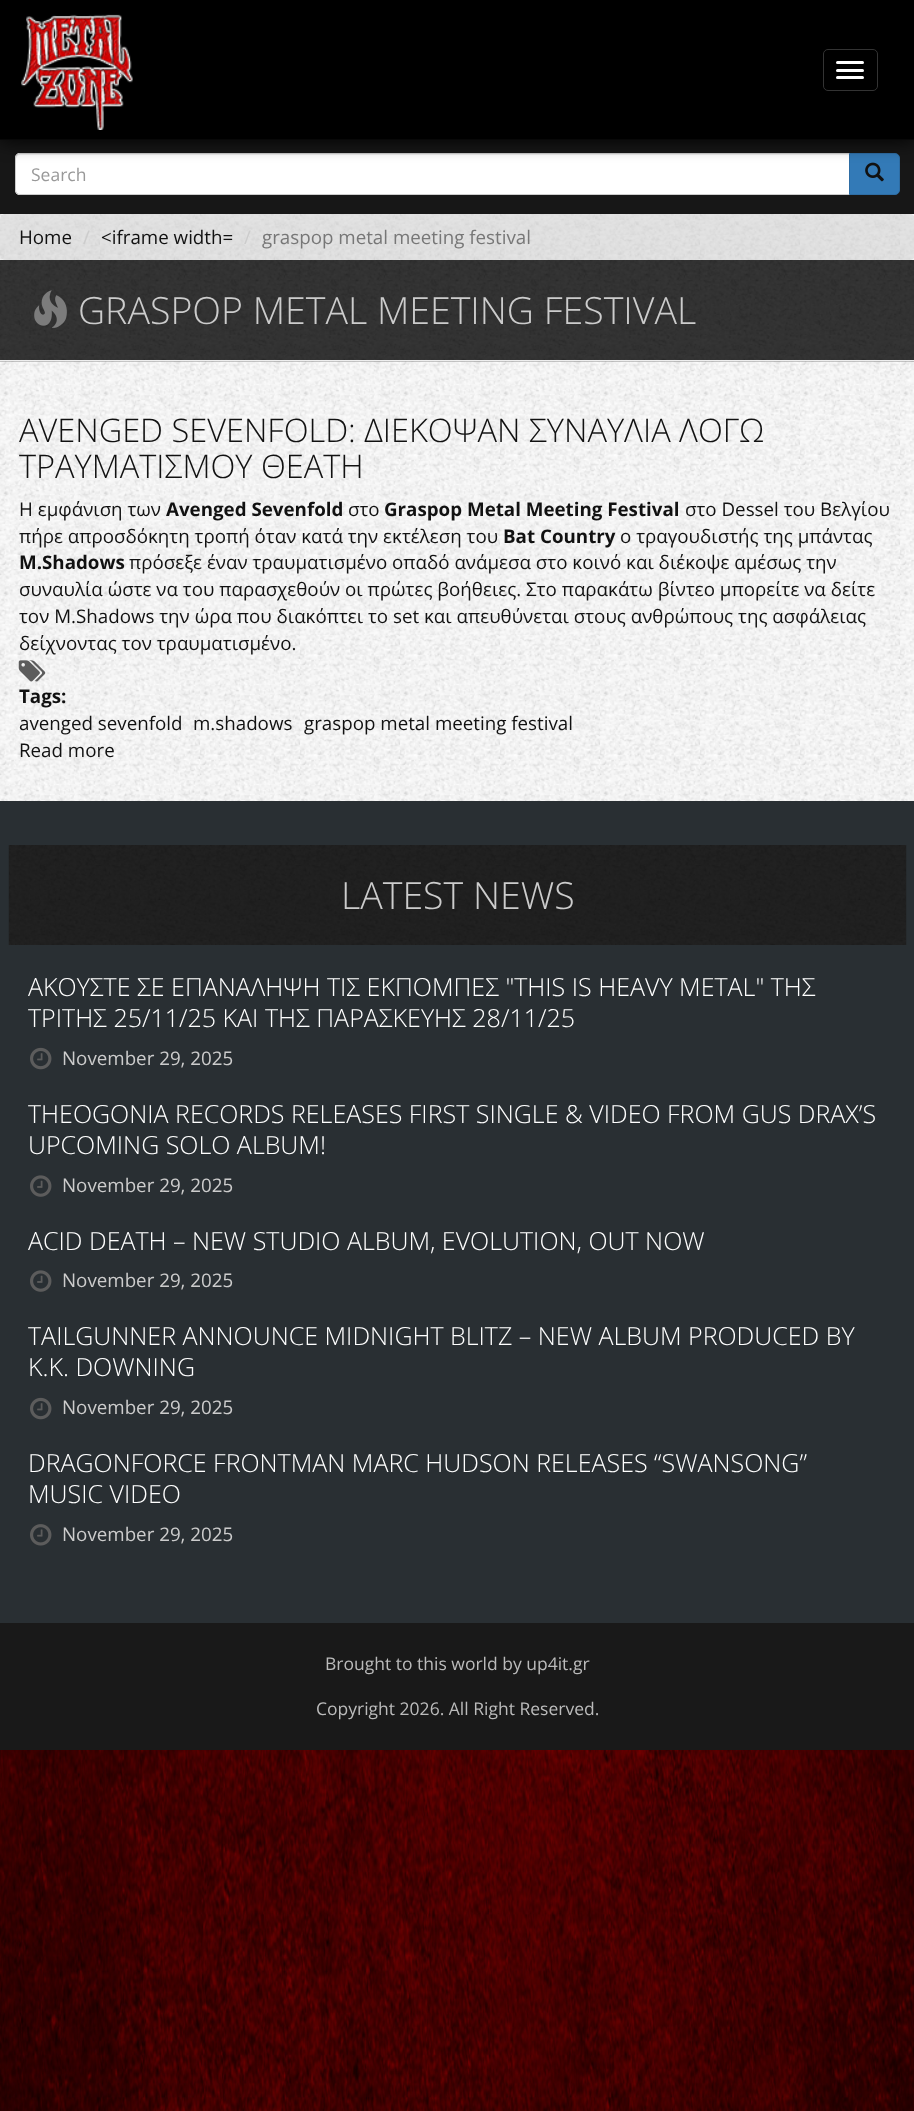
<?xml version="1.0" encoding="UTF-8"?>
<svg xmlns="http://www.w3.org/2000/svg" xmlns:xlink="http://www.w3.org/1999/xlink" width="914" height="2111">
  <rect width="100%" height="100%" fill="#ffffff" />
  <image x="0" y="1750" width="914" height="361" xlink:href="image1.png" />
  <rect y="140" width="914" height="74" fill="#171717" />
  <path d="M 20 153 h 830 v 42 h -830 c -3 0 -5 -2 -5 -5 v -32 c 0 -3 2 -5 5 -5 z" fill="#ffffff" />
  <path d="M 20 155 h 829 v -1 h -829 c -3 0 -4 2 -4 5 c 0 -2 2 -4 4 -4 z" fill="#ececec" />
  <path d="M 20 153.5 h 829.5 v 41 h -829.5 c -2.5 0 -4.5 -2 -4.5 -4.5 v -32 c 0 -2.5 2 -4.5 4.5 -4.5 z" fill="none" stroke="#cccccc" />
  <path d="M 849.5 153.5 h 45.5 c 2.5 0 4.5 2 4.5 4.5 v 32 c 0 2.5 -2 4.5 -4.5 4.5 h -45.5 z" fill="#337ab7" stroke="#2e6da4" />
  <image x="865" y="162" width="19" height="20" xlink:href="image4.png" />
  <rect width="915" height="140" fill="#000000" filter="blur(9.5px)" />
  <rect width="914" height="139" fill="#000000" />
  <rect y="139" width="914" height="1" fill="#080808" />
  <image x="21" y="14" width="112" height="116" xlink:href="image2.png" />
  <rect x="823.5" y="49.5" width="54" height="41" rx="4.5" fill="none" stroke="#333333" />
  <rect x="836" y="61" width="28" height="3" rx="1.5" fill="#ffffff" />
  <rect x="836" y="69" width="28" height="3" rx="1.5" fill="#ffffff" />
  <rect x="836" y="76" width="28" height="3" rx="1.5" fill="#ffffff" />
  <image x="0" y="214" width="914" height="587" xlink:href="image3.png" />
  <rect y="214" width="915" height="46" rx="5" fill="#cccccc" fill-opacity="0.5" />
  <image x="0" y="260" width="914" height="102" xlink:href="image5.png" />
  <rect y="360" width="914" height="1" fill="#eeeeee" />
  <image x="34" y="290" width="33" height="38" xlink:href="image6.png" />
  <image x="18" y="660" width="28" height="22" xlink:href="image7.png" />
  <rect y="801" width="914" height="822" fill="#292f33" />
  <image x="8" y="845" width="899" height="100" xlink:href="image8.png" />
  <image x="30" y="1047" width="22" height="23" xlink:href="image9.png" />
  <image x="30" y="1175" width="22" height="22" xlink:href="image10.png" />
  <image x="30" y="1270" width="22" height="22" xlink:href="image10.png" />
  <image x="30" y="1397" width="22" height="23" xlink:href="image9.png" />
  <image x="30" y="1524" width="22" height="22" xlink:href="image11.png" />
  <rect y="1623" width="914" height="127" fill="#191919" />
  <text x="31" y="181" style="font-family: Open Sans; font-size: 17.5px; fill: #999999">Search</text>
  <text x="19" y="244" style="font-family: Open Sans; font-size: 18.75px; fill: #111111">Home</text>
  <text x="83" y="244" style="font-family: Open Sans; font-size: 18.75px; fill: #cccccc">/</text>
  <text x="101" y="244" style="font-family: Open Sans; font-size: 18.75px; fill: #111111">&lt;iframe width=</text>
  <text x="244" y="244" style="font-family: Open Sans; font-size: 18.75px; fill: #cccccc">/</text>
  <text x="262" y="244" style="font-family: Open Sans; font-size: 18.75px; fill: #777777">graspop metal meeting festival</text>
  <text x="78" y="324" style="font-family: Open Sans; font-size: 37.5px; font-weight: 300; fill: #cccccc">GRASPOP METAL MEETING FESTIVAL</text>
  <text x="19" y="442" style="font-family: Open Sans; font-size: 32.5px; font-weight: 300; fill: #111111">AVENGED SEVENFOLD: ΔΙΕΚΟΨΑΝ ΣΥΝΑΥΛΙΑ ΛΟΓΩ</text>
  <text x="19" y="478" style="font-family: Open Sans; font-size: 32.5px; font-weight: 300; fill: #111111">ΤΡΑΥΜΑΤΙΣΜΟΥ ΘΕΑΤΗ</text>
  <text x="19" y="516" style="font-family: Open Sans; font-size: 18.75px; fill: #111111">Η εμφάνιση των</text>
  <text x="166" y="516" style="font-family: Open Sans; font-size: 18.75px; font-weight: bold; fill: #111111">Avenged Sevenfold</text>
  <text x="348" y="516" style="font-family: Open Sans; font-size: 18.75px; fill: #111111">στο</text>
  <text x="384" y="516" style="font-family: Open Sans; font-size: 18.75px; font-weight: bold; fill: #111111">Graspop Metal Meeting Festival</text>
  <text x="685" y="516" style="font-family: Open Sans; font-size: 18.75px; fill: #111111">στο Dessel του Βελγίου</text>
  <text x="19" y="543" style="font-family: Open Sans; font-size: 18.75px; fill: #111111">πήρε απροσδόκητη τροπή όταν κατά την εκτέλεση του</text>
  <text x="503" y="543" style="font-family: Open Sans; font-size: 18.75px; font-weight: bold; fill: #111111">Bat Country</text>
  <text x="620" y="543" style="font-family: Open Sans; font-size: 18.75px; fill: #111111">ο τραγουδιστής της μπάντας</text>
  <text x="19" y="569" style="font-family: Open Sans; font-size: 18.75px; font-weight: bold; fill: #111111">M.Shadows</text>
  <text x="129" y="569" style="font-family: Open Sans; font-size: 18.75px; fill: #111111">πρόσεξε έναν τραυματισμένο οπαδό ανάμεσα στο κοινό και διέκοψε αμέσως την</text>
  <text x="19" y="596" style="font-family: Open Sans; font-size: 18.75px; fill: #111111">συναυλία ώστε να του παρασχεθούν οι πρώτες βοήθειες. Στο παρακάτω βίντεο μπορείτε να δείτε</text>
  <text x="19" y="623" style="font-family: Open Sans; font-size: 18.75px; fill: #111111">τον M.Shadows την ώρα που διακόπτει το set και απευθύνεται στους ανθρώπους της ασφάλειας</text>
  <text x="19" y="650" style="font-family: Open Sans; font-size: 18.75px; fill: #111111">δείχνοντας τον τραυματισμένο.</text>
  <text x="19" y="703" style="font-family: Open Sans; font-size: 18.75px; font-weight: bold; fill: #111111">Tags:</text>
  <text x="19" y="730" style="font-family: Open Sans; font-size: 18.75px; fill: #111111">avenged sevenfold</text>
  <text x="193" y="730" style="font-family: Open Sans; font-size: 18.75px; fill: #111111">m.shadows</text>
  <text x="304" y="730" style="font-family: Open Sans; font-size: 18.75px; fill: #111111">graspop metal meeting festival</text>
  <text x="19" y="757" style="font-family: Open Sans; font-size: 18.75px; fill: #111111">Read more</text>
  <text x="341" y="909" style="font-family: Open Sans; font-size: 37.5px; font-weight: 300; fill: #cccccc">LATEST NEWS</text>
  <text x="28" y="996" style="font-family: Open Sans; font-size: 25px; font-weight: 300; fill: #ffffff">ΑΚΟΥΣΤΕ ΣΕ ΕΠΑΝΑΛΗΨΗ ΤΙΣ ΕΚΠΟΜΠΕΣ "THIS IS HEAVY METAL" ΤΗΣ</text>
  <text x="28" y="1027" style="font-family: Open Sans; font-size: 25px; font-weight: 300; fill: #ffffff">ΤΡΙΤΗΣ 25/11/25 ΚΑΙ ΤΗΣ ΠΑΡΑΣΚΕΥΗΣ 28/11/25</text>
  <text x="62" y="1065" style="font-family: Open Sans; font-size: 18.75px; fill: #cccccc">November 29, 2025</text>
  <text x="28" y="1123" style="font-family: Open Sans; font-size: 25px; font-weight: 300; fill: #ffffff">THEOGONIA RECORDS RELEASES FIRST SINGLE &amp; VIDEO FROM GUS DRAX’S</text>
  <text x="28" y="1154" style="font-family: Open Sans; font-size: 25px; font-weight: 300; fill: #ffffff">UPCOMING SOLO ALBUM!</text>
  <text x="62" y="1192" style="font-family: Open Sans; font-size: 18.75px; fill: #cccccc">November 29, 2025</text>
  <text x="28" y="1250" style="font-family: Open Sans; font-size: 25px; font-weight: 300; fill: #ffffff">ACID DEATH – NEW STUDIO ALBUM, EVOLUTION, OUT NOW</text>
  <text x="62" y="1287" style="font-family: Open Sans; font-size: 18.75px; fill: #cccccc">November 29, 2025</text>
  <text x="28" y="1345" style="font-family: Open Sans; font-size: 25px; font-weight: 300; fill: #ffffff">TAILGUNNER ANNOUNCE MIDNIGHT BLITZ – NEW ALBUM PRODUCED BY</text>
  <text x="28" y="1376" style="font-family: Open Sans; font-size: 25px; font-weight: 300; fill: #ffffff">K.K. DOWNING</text>
  <text x="62" y="1414" style="font-family: Open Sans; font-size: 18.75px; fill: #cccccc">November 29, 2025</text>
  <text x="28" y="1472" style="font-family: Open Sans; font-size: 25px; font-weight: 300; fill: #ffffff">DRAGONFORCE FRONTMAN MARC HUDSON RELEASES “SWANSONG”</text>
  <text x="28" y="1503" style="font-family: Open Sans; font-size: 25px; font-weight: 300; fill: #ffffff">MUSIC VIDEO</text>
  <text x="62" y="1541" style="font-family: Open Sans; font-size: 18.75px; fill: #cccccc">November 29, 2025</text>
  <text x="325" y="1670" style="font-family: Open Sans; font-size: 17.5px; fill: #bbbbbb">Brought to this world by up4it.gr</text>
  <text x="316" y="1715" style="font-family: Open Sans; font-size: 17.5px; fill: #bbbbbb">Copyright 2026. All Right Reserved.</text>
</svg>
